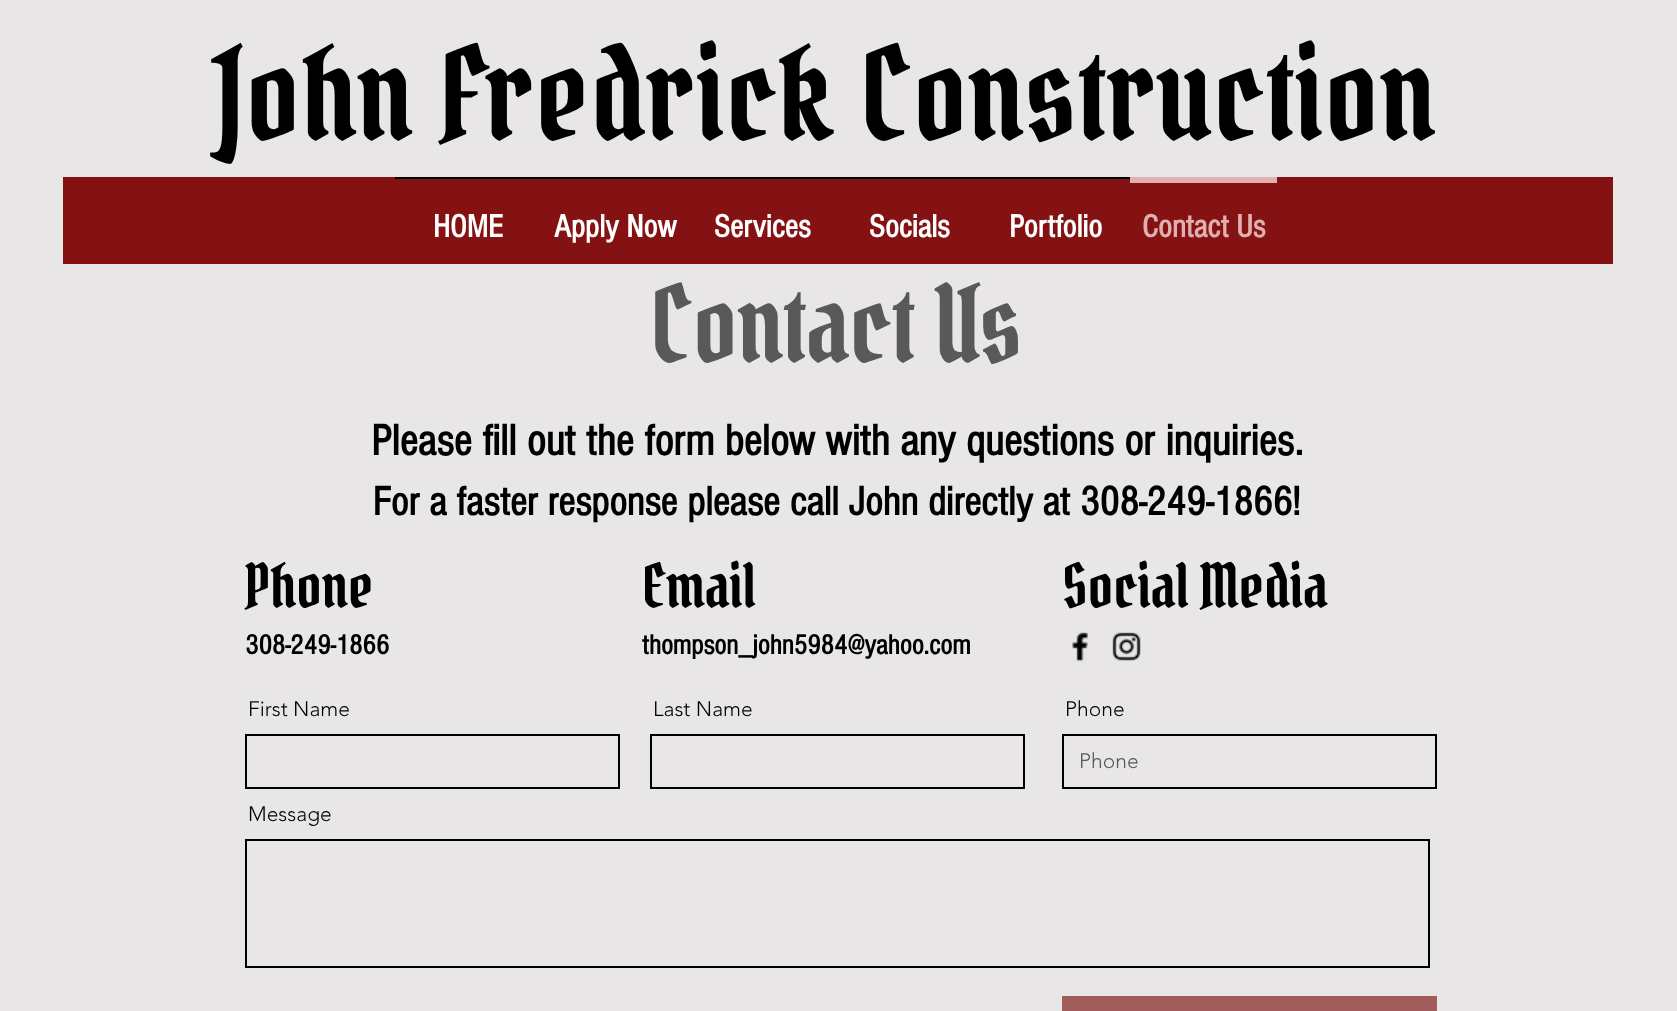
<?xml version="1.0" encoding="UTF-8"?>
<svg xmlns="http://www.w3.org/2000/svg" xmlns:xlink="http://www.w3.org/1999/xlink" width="1677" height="1011">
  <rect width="100%" height="100%" fill="#e8e6e6" />
  <rect x="63" y="177" width="1550" height="87" fill="#841212" />
  <rect x="395" y="177" width="735" height="2" fill="#000000" />
  <rect x="1130" y="177" width="147" height="6" fill="#e0b0b0" />
  <image x="1072" y="632" width="16" height="30" xlink:href="image1.png" />
  <image x="1112" y="632" width="29" height="29" xlink:href="image2.png" />
  <rect x="246" y="735" width="373" height="53" fill="none" stroke="#000000" stroke-width="2" />
  <rect x="651" y="735" width="373" height="53" fill="none" stroke="#000000" stroke-width="2" />
  <rect x="1063" y="735" width="373" height="53" fill="none" stroke="#000000" stroke-width="2" />
  <rect x="246" y="840" width="1183" height="127" fill="none" stroke="#000000" stroke-width="2" />
  <rect x="1062" y="996" width="375" height="15" fill="#a35c5c" />
  <text x="216" y="141" style="font-family: Pirata One; font-size: 127.5px; letter-spacing: 1.25px; fill: #000000">John Fredrick Construction</text>
  <text x="433" y="237" style="font-family: 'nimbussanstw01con'; font-size: 33px; font-weight: bold; fill: #ffffff">HOME</text>
  <text x="554" y="237" style="font-family: 'nimbussanstw01con'; font-size: 33px; font-weight: bold; fill: #ffffff">Apply Now</text>
  <text x="714" y="237" style="font-family: 'nimbussanstw01con'; font-size: 33px; font-weight: bold; fill: #ffffff">Services</text>
  <text x="869" y="237" style="font-family: 'nimbussanstw01con'; font-size: 33px; font-weight: bold; fill: #ffffff">Socials</text>
  <text x="1009" y="237" style="font-family: 'nimbussanstw01con'; font-size: 33px; font-weight: bold; fill: #ffffff">Portfolio</text>
  <text x="1142" y="237" style="font-family: 'nimbussanstw01con'; font-size: 33px; font-weight: bold; fill: #e0b0b0">Contact Us</text>
  <text x="650" y="363" style="font-family: Pirata One; font-size: 105px; fill: #595959">Contact Us</text>
  <text x="371" y="455" style="font-family: 'nimbussanstw01con'; font-size: 45px; font-weight: bold; fill: #000000">Please fill out the form below with any questions or inquiries.</text>
  <text x="373" y="515" style="font-family: 'nimbussanstw01con'; font-size: 42px; font-weight: bold; fill: #000000">For a faster response please call John directly at 308-249-1866!</text>
  <text x="245" y="608" style="font-family: Pirata One; font-size: 60px; fill: #000000">Phone</text>
  <text x="642" y="608" style="font-family: Pirata One; font-size: 60px; fill: #000000">Email</text>
  <text x="1062" y="608" style="font-family: Pirata One; font-size: 60px; fill: #000000">Social Media</text>
  <text x="245" y="654" style="font-family: 'nimbussanstw01con'; font-size: 28.5px; font-weight: bold; fill: #000000">308-249-1866</text>
  <text x="642" y="654" style="font-family: 'nimbussanstw01con'; font-size: 28.5px; font-weight: bold; fill: #000000">thompson_john5984@yahoo.com</text>
  <text x="248" y="716" style="font-family: 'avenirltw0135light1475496'; font-size: 21px; font-weight: 300; fill: #000000">First Name</text>
  <text x="653" y="716" style="font-family: 'avenirltw0135light1475496'; font-size: 21px; font-weight: 300; fill: #000000">Last Name</text>
  <text x="1065" y="716" style="font-family: 'avenirltw0135light1475496'; font-size: 21px; font-weight: 300; fill: #000000">Phone</text>
  <text x="1079" y="768" style="font-family: 'avenirltw0135light1475496'; font-size: 21px; font-weight: 300; fill: #595959">Phone</text>
  <text x="248" y="821" style="font-family: 'avenirltw0135light1475496'; font-size: 21px; font-weight: 300; fill: #000000">Message</text>
</svg>
